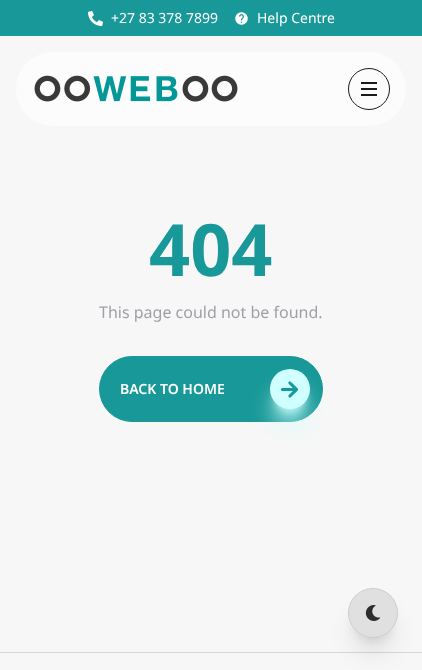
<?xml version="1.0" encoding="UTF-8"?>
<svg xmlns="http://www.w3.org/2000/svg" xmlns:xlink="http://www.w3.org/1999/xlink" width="422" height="670">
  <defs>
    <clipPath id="clip1"><path d="M 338 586 h 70 v 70 h -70 z m 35 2 c 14 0 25 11 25 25 c 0 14 -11 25 -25 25 c -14 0 -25 -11 -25 -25 c 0 -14 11 -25 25 -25 z" clip-rule="evenodd" /></clipPath>
    <clipPath id="clip2"><path d="M 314 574 h 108 v 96 h -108 z m 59 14 c 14 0 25 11 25 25 c 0 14 -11 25 -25 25 c -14 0 -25 -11 -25 -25 c 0 -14 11 -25 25 -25 z" clip-rule="evenodd" /></clipPath>
  </defs>
  <rect width="100%" height="100%" fill="#f7f7f7" />
  <rect width="422" height="36" fill="#189898" />
  <image x="88" y="11" width="15" height="15" xlink:href="image1.png" />
  <image x="235" y="12" width="13" height="13" xlink:href="image2.png" />
  <rect x="16" y="52" width="390" height="74" rx="37" fill="#fcfcfc" />
  <image x="34" y="75" width="204" height="27" xlink:href="image3.png" />
  <circle cx="369" cy="89" r="20.5" fill="none" stroke="#1b1b1c" />
  <path d="M 361 83 h 16 m -16 6 h 16 m -16 6 h 16" fill="none" stroke="#1b1b1c" stroke-width="2" />
  <rect x="99.5" y="356.5" width="223" height="65" rx="32.5" fill="#189898" stroke="#189898" />
  <rect x="276" y="383" width="28" height="28" rx="14" fill="#d0ffff" filter="blur(5px)" />
  <rect x="275" y="394" width="30" height="30" rx="15" fill="#d0ffff" filter="blur(12.5px)" />
  <circle cx="290" cy="389" r="20" fill="#d0ffff" />
  <image x="280" y="381" width="19" height="17" xlink:href="image4.png" />
  <rect y="652" width="422" height="1" fill="#d6d6d6" />
  <g clip-path="url(#clip1)">
    <rect x="354" y="602" width="38" height="38" rx="19" fill="#000000" fill-opacity="0.1" filter="blur(5px)" />
  </g>
  <g clip-path="url(#clip2)">
    <rect x="353" y="613" width="40" height="40" rx="20" fill="#000000" fill-opacity="0.1" filter="blur(12.5px)" />
  </g>
  <circle cx="373" cy="613" r="25" fill="#1b1b1c" fill-opacity="0.1" />
  <circle cx="373" cy="613" r="24.5" fill="none" stroke="#1b1b1c" stroke-opacity="0.1" />
  <image x="365" y="605" width="16" height="16" xlink:href="image5.png" />
  <text x="111" y="23" style="font-family: Noto Sans; font-size: 14px; fill: #ffffff">+27 83 378 7899</text>
  <text x="257" y="23" style="font-family: Noto Sans; font-size: 14px; fill: #ffffff">Help Centre</text>
  <text x="149" y="276" style="font-family: Noto Sans; font-size: 72px; font-weight: bold; fill: #189898">404</text>
  <text x="99" y="318" style="font-family: Noto Sans; font-size: 16px; fill: #9f9fa9">This page could not be found.</text>
  <text x="120" y="394" style="font-family: Noto Sans; font-size: 14px; font-weight: 600; fill: #ffffff">BACK TO HOME</text>
</svg>
